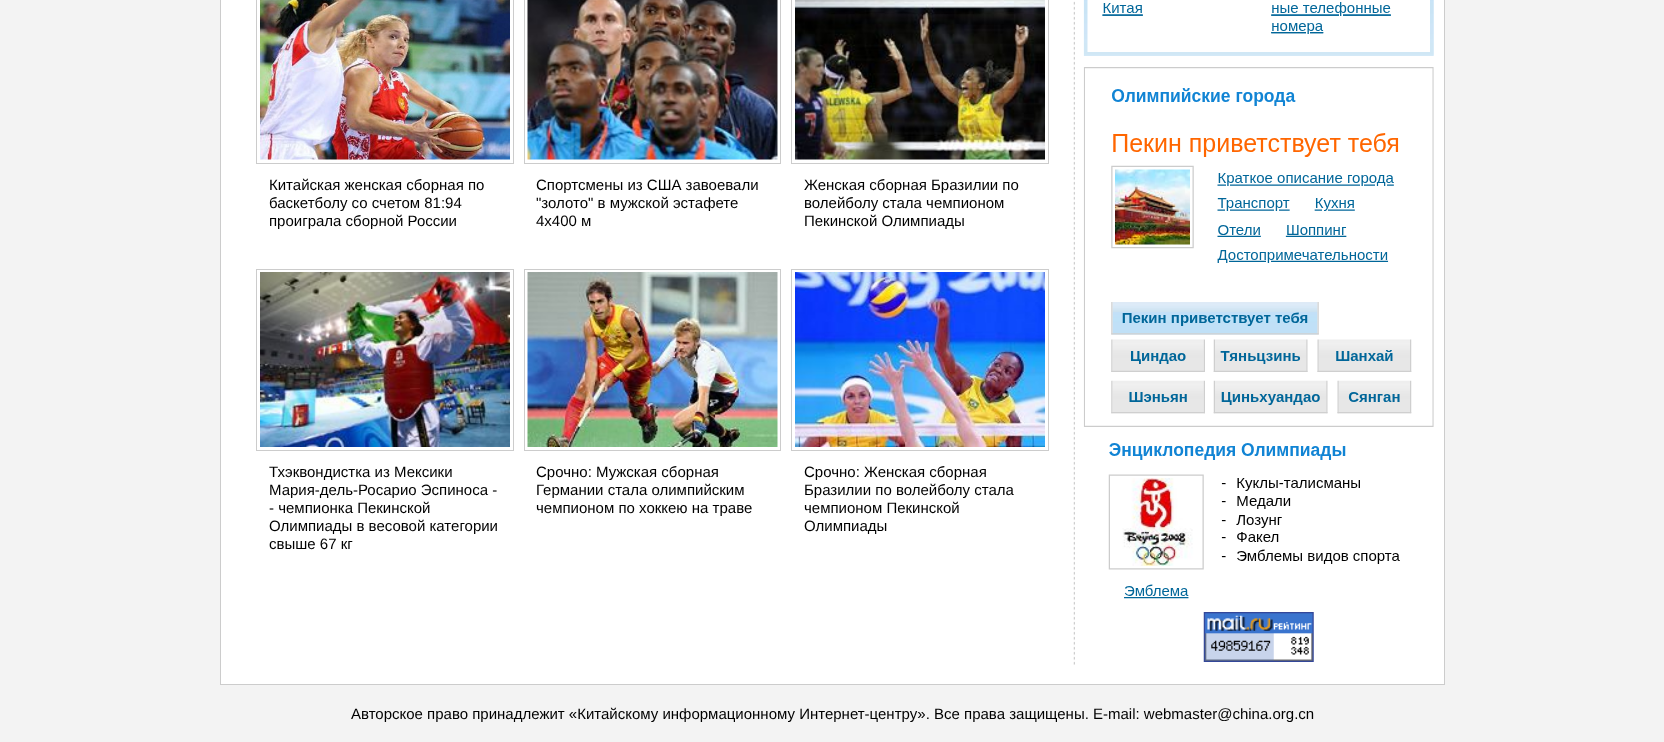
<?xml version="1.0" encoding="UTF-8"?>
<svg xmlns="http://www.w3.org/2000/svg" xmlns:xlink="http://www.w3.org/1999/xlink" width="1664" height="742">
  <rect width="100%" height="100%" fill="#f3f3f3" />
  <rect x="220" width="1225" height="685" fill="#cccccc" />
  <rect x="221" width="1223" height="684" fill="#ffffff" />
  <rect x="256.5" y="-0.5" width="257" height="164" fill="none" stroke="#cccccc" />
  <image x="260" y="0" width="250" height="160" xlink:href="image1.png" />
  <rect x="524.5" y="-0.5" width="256" height="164" fill="none" stroke="#cccccc" />
  <image x="527" y="0" width="251" height="160" xlink:href="image2.png" />
  <rect x="791.5" y="-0.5" width="257" height="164" fill="none" stroke="#cccccc" />
  <image x="795" y="0" width="250" height="160" xlink:href="image3.png" />
  <rect x="256.5" y="269.5" width="257" height="181" fill="none" stroke="#cccccc" />
  <image x="260" y="272" width="250" height="175" xlink:href="image4.png" />
  <rect x="524.5" y="269.5" width="256" height="181" fill="none" stroke="#cccccc" />
  <image x="527" y="272" width="251" height="175" xlink:href="image5.png" />
  <rect x="791.5" y="269.5" width="257" height="181" fill="none" stroke="#cccccc" />
  <image x="795" y="272" width="250" height="175" xlink:href="image6.png" />
  <image x="1073" y="1" width="2" height="664" xlink:href="image7.png" />
  <image x="1083" y="0" width="351" height="662" xlink:href="image8.png" />
  <text x="269" y="190" style="font-family: Liberation Sans; font-size: 15px; fill: #000000">Китайская женская сборная по</text>
  <text x="269" y="208" style="font-family: Liberation Sans; font-size: 15px; fill: #000000">баскетболу со счетом 81:94</text>
  <text x="269" y="226" style="font-family: Liberation Sans; font-size: 15px; fill: #000000">проиграла сборной России</text>
  <text x="536" y="190" style="font-family: Liberation Sans; font-size: 15px; fill: #000000">Спортсмены из США завоевали</text>
  <text x="536" y="208" style="font-family: Liberation Sans; font-size: 15px; fill: #000000">"золото" в мужской эстафете</text>
  <text x="536" y="226" style="font-family: Liberation Sans; font-size: 15px; fill: #000000">4х400 м</text>
  <text x="804" y="190" style="font-family: Liberation Sans; font-size: 15px; fill: #000000">Женская сборная Бразилии по</text>
  <text x="804" y="208" style="font-family: Liberation Sans; font-size: 15px; fill: #000000">волейболу стала чемпионом</text>
  <text x="804" y="226" style="font-family: Liberation Sans; font-size: 15px; fill: #000000">Пекинской Олимпиады</text>
  <text x="269" y="477" style="font-family: Liberation Sans; font-size: 15px; fill: #000000">Тхэквондистка из Мексики</text>
  <text x="269" y="495" style="font-family: Liberation Sans; font-size: 15px; fill: #000000">Мария-дель-Росарио Эспиноса -</text>
  <text x="269" y="513" style="font-family: Liberation Sans; font-size: 15px; fill: #000000">- чемпионка Пекинской</text>
  <text x="269" y="531" style="font-family: Liberation Sans; font-size: 15px; fill: #000000">Олимпиады в весовой категории</text>
  <text x="269" y="549" style="font-family: Liberation Sans; font-size: 15px; fill: #000000">свыше 67 кг</text>
  <text x="536" y="477" style="font-family: Liberation Sans; font-size: 15px; fill: #000000">Срочно: Мужская сборная</text>
  <text x="536" y="495" style="font-family: Liberation Sans; font-size: 15px; fill: #000000">Германии стала олимпийским</text>
  <text x="536" y="513" style="font-family: Liberation Sans; font-size: 15px; fill: #000000">чемпионом по хоккею на траве</text>
  <text x="804" y="477" style="font-family: Liberation Sans; font-size: 15px; fill: #000000">Срочно: Женская сборная</text>
  <text x="804" y="495" style="font-family: Liberation Sans; font-size: 15px; fill: #000000">Бразилии по волейболу стала</text>
  <text x="804" y="513" style="font-family: Liberation Sans; font-size: 15px; fill: #000000">чемпионом Пекинской</text>
  <text x="804" y="531" style="font-family: Liberation Sans; font-size: 15px; fill: #000000">Олимпиады</text>
  <text x="351" y="719" style="font-family: Liberation Sans; font-size: 15px; fill: #000000">Авторское право принадлежит «Китайскому информационному Интернет-центру». Все права защищены. E-mail: webmaster@china.org.cn</text>
</svg>
